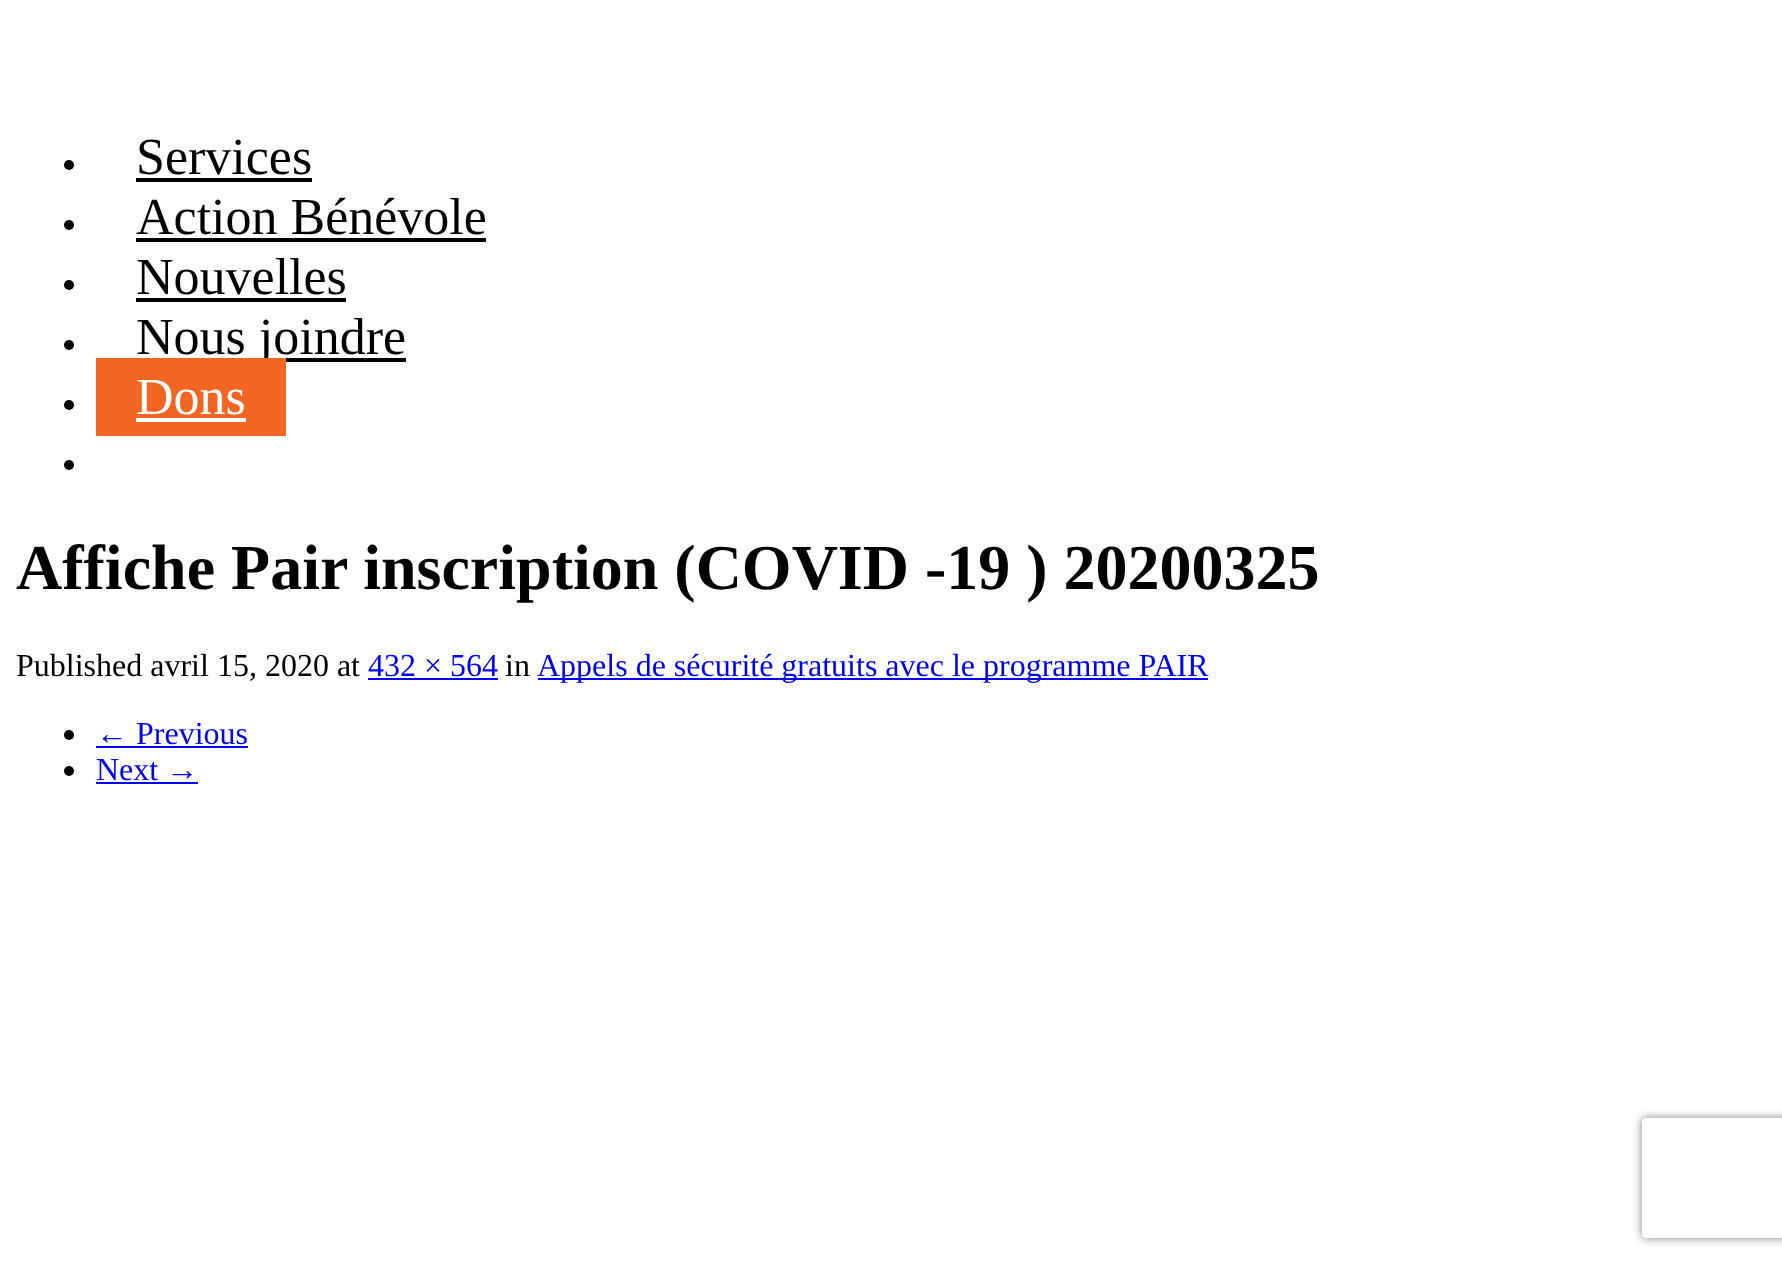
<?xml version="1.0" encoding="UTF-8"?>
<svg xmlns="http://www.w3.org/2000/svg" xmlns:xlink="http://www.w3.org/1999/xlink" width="1782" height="1265">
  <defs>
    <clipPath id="clip1"><path d="M 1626 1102 h 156 v 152 h -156 z m 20 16 h 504 c 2 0 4 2 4 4 v 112 c 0 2 -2 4 -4 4 h -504 c -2 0 -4 -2 -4 -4 v -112 c 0 -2 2 -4 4 -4 z" clip-rule="evenodd" /></clipPath>
  </defs>
  <rect width="100%" height="100%" fill="#ffffff" />
  <circle cx="69" cy="165" r="5" fill="#000000" />
  <rect x="136" y="178" width="176" height="4" fill="#000000" />
  <circle cx="69" cy="225" r="5" fill="#000000" />
  <rect x="136" y="238" width="350" height="4" fill="#000000" />
  <circle cx="69" cy="285" r="5" fill="#000000" />
  <rect x="136" y="298" width="210" height="4" fill="#000000" />
  <circle cx="69" cy="345" r="5" fill="#000000" />
  <rect x="286" y="358" width="120" height="4" fill="#000000" />
  <circle cx="69" cy="405" r="5" fill="#000000" />
  <circle cx="69" cy="465" r="5" fill="#000000" />
  <rect x="368" y="678" width="130" height="2" fill="#0000ee" />
  <rect x="538" y="678" width="670" height="2" fill="#0000ee" />
  <circle cx="69" cy="735" r="5" fill="#000000" />
  <rect x="96" y="746" width="152" height="2" fill="#0000ee" />
  <circle cx="69" cy="771" r="5" fill="#000000" />
  <rect x="96" y="782" width="102" height="2" fill="#0000ee" />
  <g clip-path="url(#clip1)">
    <rect x="1642" y="1118" width="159" height="120" rx="4" fill="#808080" filter="blur(5px)" />
  </g>
  <text x="136" y="174" style="font-family: Liberation Serif; font-size: 52px; fill: #000000">Services</text>
  <text x="136" y="234" style="font-family: Liberation Serif; font-size: 52px; fill: #000000">Action Bénévole</text>
  <text x="136" y="294" style="font-family: Liberation Serif; font-size: 52px; fill: #000000">Nouvelles</text>
  <text x="136" y="354" style="font-family: Liberation Serif; font-size: 52px; fill: #000000">Nous joindre</text>
  <rect x="96" y="358" width="190" height="78" fill="#f26522" />
  <text x="136" y="414" style="font-family: Liberation Serif; font-size: 52px; fill: #ffffff">Dons</text>
  <rect x="136" y="418" width="110" height="4" fill="#ffffff" />
  <text x="16" y="589" style="font-family: Liberation Serif; font-size: 64px; font-weight: bold; fill: #000000">Affiche Pair inscription (COVID -19 ) 20200325</text>
  <text x="16" y="676" style="font-family: Liberation Serif; font-size: 32px; fill: #000000">Published avril 15, 2020 at</text>
  <text x="368" y="676" style="font-family: Liberation Serif; font-size: 32px; fill: #0000ee">432 × 564</text>
  <text x="505" y="676" style="font-family: Liberation Serif; font-size: 32px; fill: #000000">in</text>
  <text x="537" y="676" style="font-family: Liberation Serif; font-size: 32px; fill: #0000ee">Appels de sécurité gratuits avec le programme PAIR</text>
  <text x="96" y="744" style="font-family: Liberation Serif; font-size: 32px; fill: #0000ee">← Previous</text>
  <text x="96" y="780" style="font-family: Liberation Serif; font-size: 32px; fill: #0000ee">Next →</text>
</svg>
